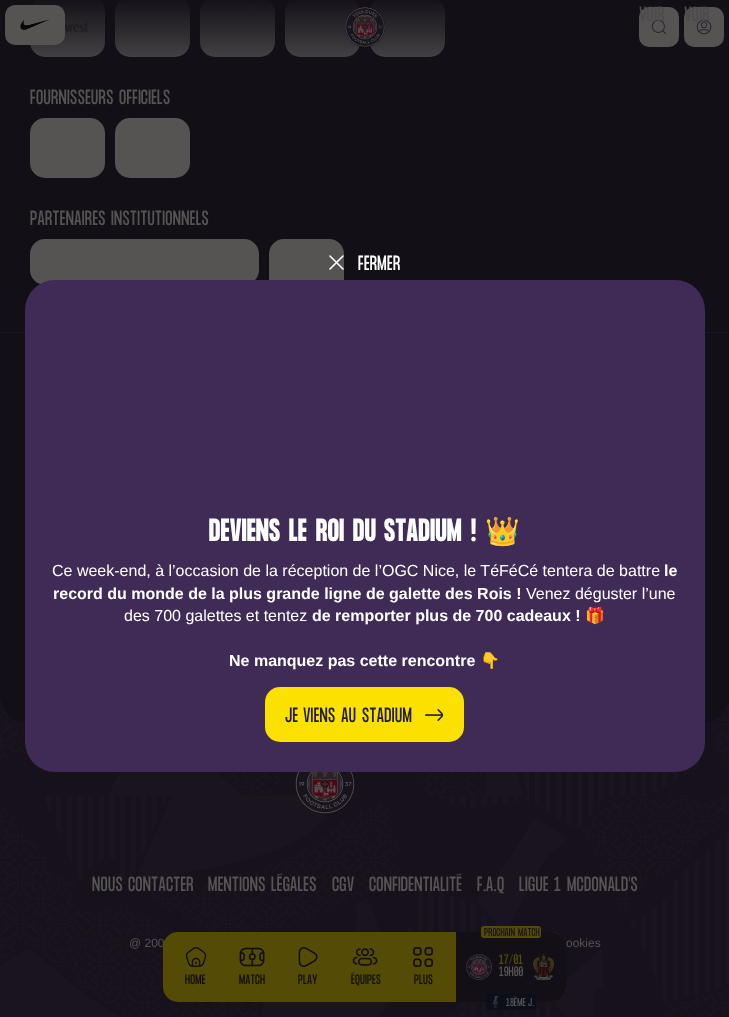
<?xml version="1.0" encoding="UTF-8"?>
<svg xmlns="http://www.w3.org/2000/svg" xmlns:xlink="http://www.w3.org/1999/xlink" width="729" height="1017">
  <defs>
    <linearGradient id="g1" gradientUnits="userSpaceOnUse" x1="365" y1="-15" x2="365" y2="105"><stop offset="0.1" stop-color="#130f17" /><stop offset="0.8" stop-color="#130f17" stop-opacity="0" /></linearGradient>
  </defs>
  <rect width="100%" height="100%" fill="#16111a" />
  <image x="0" y="694" width="729" height="323" xlink:href="image8.png" />
  <rect y="-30" width="729" height="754" rx="30" fill="#130f16" />
  <rect x="30" y="-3" width="75" height="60" rx="15" fill="#555453" />
  <image x="65" y="22" width="24" height="11" xlink:href="image5.png" />
  <rect x="115" y="-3" width="75" height="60" rx="15" fill="#555453" />
  <rect x="200" y="-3" width="75" height="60" rx="15" fill="#555453" />
  <rect x="285" y="-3" width="75" height="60" rx="15" fill="#555453" />
  <rect x="370" y="-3" width="75" height="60" rx="15" fill="#555453" />
  <rect x="30" width="415" height="57" fill="url(#g1)" />
  <rect x="5" y="5" width="60" height="40" rx="10" fill="#555453" />
  <image x="20" y="19" width="30" height="11" xlink:href="image1.png" />
  <image x="345" y="7" width="40" height="40" xlink:href="image2.png" />
  <rect x="639" y="7" width="40" height="40" rx="10" fill="#555453" />
  <image x="651" y="19" width="16" height="16" xlink:href="image3.png" />
  <rect x="684" y="7" width="40" height="40" rx="10" fill="#555453" />
  <image x="696" y="19" width="16" height="16" xlink:href="image4.png" />
  <rect x="30" y="118" width="75" height="60" rx="15" fill="#555453" />
  <rect x="115" y="118" width="75" height="60" rx="15" fill="#555453" />
  <rect x="30" y="239" width="229" height="46" rx="15" fill="#555453" />
  <rect x="269" y="239" width="75" height="60" rx="15" fill="#555453" />
  <rect y="332" width="729" height="1" fill="#1b1420" />
  <image x="295" y="772" width="60" height="42" xlink:href="image6.png" />
  <path d="M 343 269 l -13 -13 m 13 0 l -13 13" fill="none" stroke="#ffffff" stroke-width="1.6" stroke-linecap="round" />
  <rect x="25" y="280" width="680" height="492" rx="30" fill="#3f2b56" />
  <rect x="265" y="687" width="199" height="55" rx="15" fill="#fae100" />
  <image x="425" y="709" width="19" height="12" xlink:href="image7.png" />
  <text x="639" y="21" style="font-family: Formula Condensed; font-size: 18px; letter-spacing: 0.4px; fill: #4d4b4c">VOIR</text>
  <text x="684" y="21" style="font-family: Formula Condensed; font-size: 18px; letter-spacing: 0.4px; fill: #4d4b4c">VOIR</text>
  <text x="30" y="104" style="font-family: Formula Condensed; font-size: 18px; letter-spacing: 0.4px; fill: #555453">FOURNISSEURS</text>
  <text x="119" y="104" style="font-family: Formula Condensed; font-size: 18px; letter-spacing: 0.4px; fill: #555453">OFFICIELS</text>
  <text x="30" y="225" style="font-family: Formula Condensed; font-size: 18px; letter-spacing: 0.4px; fill: #555453">PARTENAIRES</text>
  <text x="111" y="225" style="font-family: Formula Condensed; font-size: 18px; letter-spacing: 0.4px; fill: #555453">INSTITUTIONNELS</text>
  <text x="92" y="891" style="font-family: Formula Condensed; font-size: 18px; letter-spacing: 0.4px; fill: #555453">NOUS</text>
  <text x="128" y="891" style="font-family: Formula Condensed; font-size: 18px; letter-spacing: 0.4px; fill: #555453">CONTACTER</text>
  <text x="208" y="891" style="font-family: Formula Condensed; font-size: 18px; letter-spacing: 0.4px; fill: #555453">MENTIONS</text>
  <text x="271" y="891" style="font-family: Formula Condensed; font-size: 18px; letter-spacing: 0.4px; fill: #555453">LÉGALES</text>
  <text x="332" y="891" style="font-family: Formula Condensed; font-size: 18px; letter-spacing: 0.4px; fill: #555453">CGV</text>
  <text x="369" y="891" style="font-family: Formula Condensed; font-size: 18px; letter-spacing: 0.4px; fill: #555453">CONFIDENTIALITÉ</text>
  <text x="477" y="891" style="font-family: Formula Condensed; font-size: 18px; letter-spacing: 0.4px; fill: #555453">F.A.Q</text>
  <text x="519" y="891" style="font-family: Formula Condensed; font-size: 18px; letter-spacing: 0.4px; fill: #555453">LIGUE</text>
  <text x="554" y="891" style="font-family: Formula Condensed; font-size: 18px; letter-spacing: 0.4px; fill: #555453">1</text>
  <text x="567" y="891" style="font-family: Formula Condensed; font-size: 18px; letter-spacing: 0.4px; fill: #555453">MCDONALD'S</text>
  <text x="129" y="947" style="font-family: Liberation Sans; font-size: 12px; fill: #555453">@ 200</text>
  <text x="566" y="947" style="font-family: Liberation Sans; font-size: 12px; fill: #555453">ookies</text>
  <text x="358" y="270" style="font-family: Formula Condensed; font-size: 18px; letter-spacing: 0.4px; fill: #ffffff">FERMER</text>
  <text x="209" y="541" style="font-family: Formula Condensed; font-size: 28px; font-weight: bold; letter-spacing: 0.5px; fill: #ffffff">DEVIENS</text>
  <text x="289" y="541" style="font-family: Formula Condensed; font-size: 28px; font-weight: bold; letter-spacing: 0.5px; fill: #ffffff">LE</text>
  <text x="316" y="541" style="font-family: Formula Condensed; font-size: 28px; font-weight: bold; letter-spacing: 0.5px; fill: #ffffff">ROI</text>
  <text x="353" y="541" style="font-family: Formula Condensed; font-size: 28px; font-weight: bold; letter-spacing: 0.5px; fill: #ffffff">DU</text>
  <text x="384" y="541" style="font-family: Formula Condensed; font-size: 28px; font-weight: bold; letter-spacing: 0.5px; fill: #ffffff">STADIUM</text>
  <text x="471" y="541" style="font-family: Formula Condensed; font-size: 28px; font-weight: bold; letter-spacing: 0.5px; fill: #ffffff">!</text>
  <text x="485" y="541" style="font-family: Noto Color Emoji; font-size: 28px; font-weight: bold; letter-spacing: 0.5px; fill: #ffffff">👑</text>
  <text x="52" y="576" style="font-family: Liberation Sans; font-size: 16px; fill: #ffffff">Ce week-end, à l’occasion de la réception de l’OGC Nice, le TéFéCé tentera de battre</text>
  <text x="664" y="576" style="font-family: Liberation Sans; font-size: 16px; font-weight: bold; fill: #ffffff">le</text>
  <text x="53" y="599" style="font-family: Liberation Sans; font-size: 16px; font-weight: bold; fill: #ffffff">record du monde de la plus grande ligne de galette des Rois !</text>
  <text x="526" y="599" style="font-family: Liberation Sans; font-size: 16px; fill: #ffffff">Venez déguster l’une</text>
  <text x="124" y="621" style="font-family: Liberation Sans; font-size: 16px; fill: #ffffff">des 700 galettes et tentez</text>
  <text x="312" y="621" style="font-family: Liberation Sans; font-size: 16px; font-weight: bold; fill: #ffffff">de remporter plus de 700 cadeaux !</text>
  <text x="585" y="621" style="font-family: Noto Color Emoji; font-size: 16px; font-weight: bold; fill: #ffffff">🎁</text>
  <text x="229" y="666" style="font-family: Liberation Sans; font-size: 16px; font-weight: bold; fill: #ffffff">Ne manquez pas cette rencontre</text>
  <text x="480" y="666" style="font-family: Noto Color Emoji; font-size: 16px; font-weight: bold; fill: #ffffff">👇</text>
  <text x="285" y="722" style="font-family: Formula Condensed; font-size: 18px; letter-spacing: 0.4px; fill: #221c35">JE</text>
  <text x="303" y="722" style="font-family: Formula Condensed; font-size: 18px; letter-spacing: 0.4px; fill: #221c35">VIENS</text>
  <text x="341" y="722" style="font-family: Formula Condensed; font-size: 18px; letter-spacing: 0.4px; fill: #221c35">AU</text>
  <text x="362" y="722" style="font-family: Formula Condensed; font-size: 18px; letter-spacing: 0.4px; fill: #221c35">STADIUM</text>
  <rect x="163" y="932" width="403" height="70" rx="15" fill="#534b06" />
  <image x="185" y="947" width="22" height="20" xlink:href="image9.png" />
  <text x="185" y="984" style="font-family: Formula Condensed; font-size: 12px; letter-spacing: 0.25px; fill: #130f16">HOME</text>
  <image x="239" y="947" width="26" height="20" xlink:href="image10.png" />
  <text x="239" y="984" style="font-family: Formula Condensed; font-size: 12px; letter-spacing: 0.25px; fill: #130f16">MATCH</text>
  <image x="298" y="947" width="20" height="20" xlink:href="image11.png" />
  <text x="298" y="984" style="font-family: Formula Condensed; font-size: 12px; letter-spacing: 0.25px; fill: #130f16">PLAY</text>
  <image x="352" y="948" width="26" height="18" xlink:href="image12.png" />
  <text x="351" y="984" style="font-family: Formula Condensed; font-size: 12px; letter-spacing: 0.25px; fill: #130f16">ÉQUIPES</text>
  <image x="413" y="947" width="21" height="20" xlink:href="image13.png" />
  <text x="414" y="984" style="font-family: Formula Condensed; font-size: 12px; letter-spacing: 0.25px; fill: #130f16">PLUS</text>
  <path d="M 456 932 h 95 c 8.5 0 15 6.5 15 15 v 40 c 0 8.5 -6.5 15 -15 15 h -95 z" fill="#130f16" />
  <rect x="481" y="926" width="60" height="12" rx="3" fill="#534b06" />
  <text x="484" y="936" style="font-family: Formula Condensed; font-size: 10px; letter-spacing: 0.25px; fill: #1b1420">PROCHAIN</text>
  <text x="518" y="936" style="font-family: Formula Condensed; font-size: 10px; letter-spacing: 0.25px; fill: #1b1420">MATCH</text>
  <image x="466" y="954" width="27" height="26" xlink:href="image14.png" />
  <text x="499" y="964" style="font-family: Formula Condensed; font-size: 12px; letter-spacing: 0.25px; fill: #534b06">17/01</text>
  <text x="499" y="976" style="font-family: Formula Condensed; font-size: 12px; letter-spacing: 0.25px; fill: #555453">19H00</text>
  <image x="533" y="953" width="21" height="28" xlink:href="image15.png" />
  <rect x="486" y="994" width="50" height="16" rx="3" fill="#0b0f19" />
  <image x="492" y="995" width="7" height="14" xlink:href="image16.png" />
  <text x="506" y="1006" style="font-family: Formula Condensed; font-size: 10px; letter-spacing: 0.25px; fill: #555453">18ÈME</text>
  <text x="528" y="1006" style="font-family: Formula Condensed; font-size: 10px; letter-spacing: 0.25px; fill: #555453">J.</text>
</svg>
